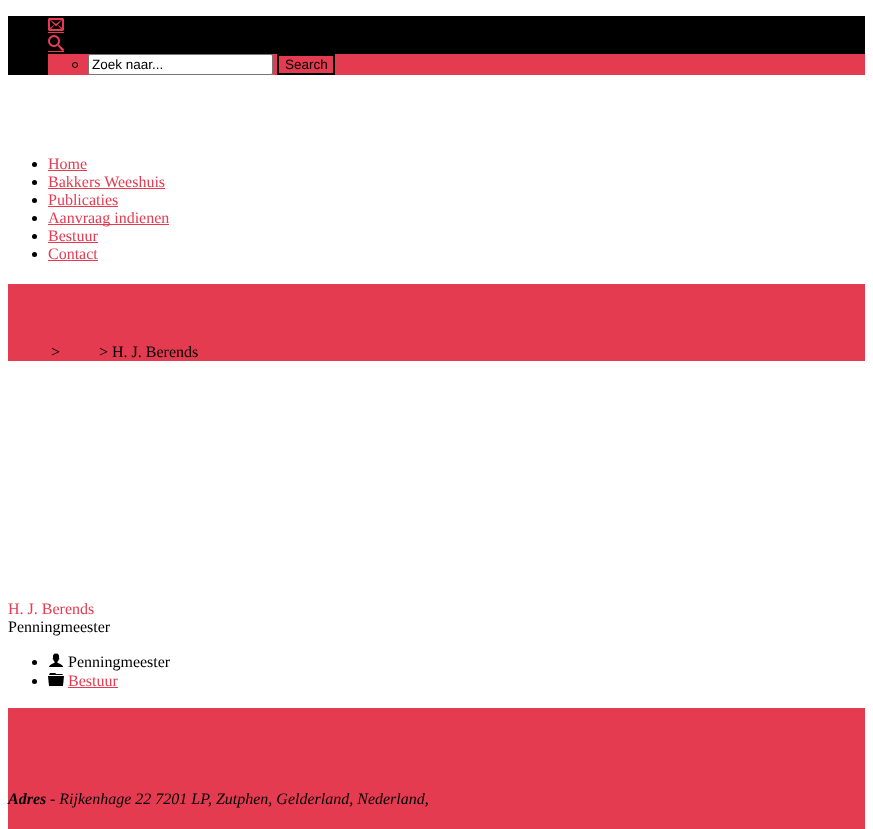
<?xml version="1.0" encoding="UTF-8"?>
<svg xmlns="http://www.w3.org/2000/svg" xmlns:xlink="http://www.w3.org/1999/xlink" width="873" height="829">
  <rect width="100%" height="100%" fill="#ffffff" />
  <rect x="8" y="16" width="857" height="59" fill="#000000" />
  <image x="48" y="18" width="16" height="13" xlink:href="image1.png" />
  <rect x="48" y="32" width="16" height="1" fill="#e53b51" />
  <image x="48" y="35" width="16" height="16" xlink:href="image2.png" />
  <rect x="48" y="51" width="16" height="1" fill="#e53b51" />
  <rect x="48" y="54" width="817" height="21" fill="#e53b51" />
  <circle cx="75" cy="65" r="2.5" fill="none" stroke="#000000" />
  <rect x="88.5" y="54.5" width="184" height="20" rx="1.5" fill="#ffffff" stroke="#767676" />
  <rect x="278" y="55" width="56" height="19" fill="none" stroke="#000000" stroke-width="2" />
  <circle cx="34.5" cy="164.5" r="2.5" fill="#000000" />
  <rect x="48" y="170" width="39" height="1" fill="#e53b51" />
  <circle cx="34.5" cy="182.5" r="2.5" fill="#000000" />
  <rect x="48" y="188" width="117" height="1" fill="#e53b51" />
  <circle cx="34.5" cy="200.5" r="2.5" fill="#000000" />
  <rect x="48" y="206" width="70" height="1" fill="#e53b51" />
  <circle cx="34.5" cy="218.5" r="2.5" fill="#000000" />
  <rect x="48" y="224" width="121" height="1" fill="#e53b51" />
  <circle cx="34.5" cy="236.5" r="2.5" fill="#000000" />
  <rect x="48" y="242" width="50" height="1" fill="#e53b51" />
  <circle cx="34.5" cy="254.5" r="2.5" fill="#000000" />
  <rect x="48" y="260" width="50" height="1" fill="#e53b51" />
  <rect x="8" y="284" width="857" height="77" fill="#e53b51" />
  <circle cx="34.5" cy="662.5" r="2.5" fill="#000000" />
  <image x="49" y="653" width="14" height="14" xlink:href="image3.png" />
  <circle cx="34.5" cy="681.5" r="2.5" fill="#000000" />
  <image x="48" y="673" width="16" height="13" xlink:href="image4.png" />
  <rect x="68" y="687" width="50" height="1" fill="#e53b51" />
  <rect x="8" y="708" width="857" height="121" fill="#e53b51" />
  <text x="92" y="69" style="font-family: Liberation Sans; font-size: 13.5px; fill: #000000">Zoek naar...</text>
  <text x="285" y="69" style="font-family: Liberation Sans; font-size: 13.5px; fill: #000000">Search</text>
  <text x="48" y="169" style="font-family: Liberation Serif; font-size: 16px; fill: #e53b51">Home</text>
  <text x="48" y="187" style="font-family: Liberation Serif; font-size: 16px; fill: #e53b51">Bakkers Weeshuis</text>
  <text x="48" y="205" style="font-family: Liberation Serif; font-size: 16px; fill: #e53b51">Publicaties</text>
  <text x="48" y="223" style="font-family: Liberation Serif; font-size: 16px; fill: #e53b51">Aanvraag indienen</text>
  <text x="48" y="241" style="font-family: Liberation Serif; font-size: 16px; fill: #e53b51">Bestuur</text>
  <text x="48" y="259" style="font-family: Liberation Serif; font-size: 16px; fill: #e53b51">Contact</text>
  <text x="51" y="357" style="font-family: Liberation Serif; font-size: 16px; fill: #000000">&gt;</text>
  <text x="99" y="357" style="font-family: Liberation Serif; font-size: 16px; fill: #000000">&gt; H. J. Berends</text>
  <text x="8" y="614" style="font-family: Liberation Serif; font-size: 16px; fill: #e53b51">H. J. Berends</text>
  <text x="8" y="632" style="font-family: Liberation Serif; font-size: 16px; fill: #000000">Penningmeester</text>
  <text x="68" y="667" style="font-family: Liberation Serif; font-size: 16px; fill: #000000">Penningmeester</text>
  <text x="68" y="686" style="font-family: Liberation Serif; font-size: 16px; fill: #e53b51">Bestuur</text>
  <text x="8" y="804" style="font-family: Liberation Serif; font-size: 16px; font-weight: bold; font-style: italic; fill: #000000">Adres</text>
  <text x="50" y="804" style="font-family: Liberation Serif; font-size: 16px; font-style: italic; fill: #000000">- Rijkenhage 22 7201 LP, Zutphen, Gelderland, Nederland,</text>
</svg>
